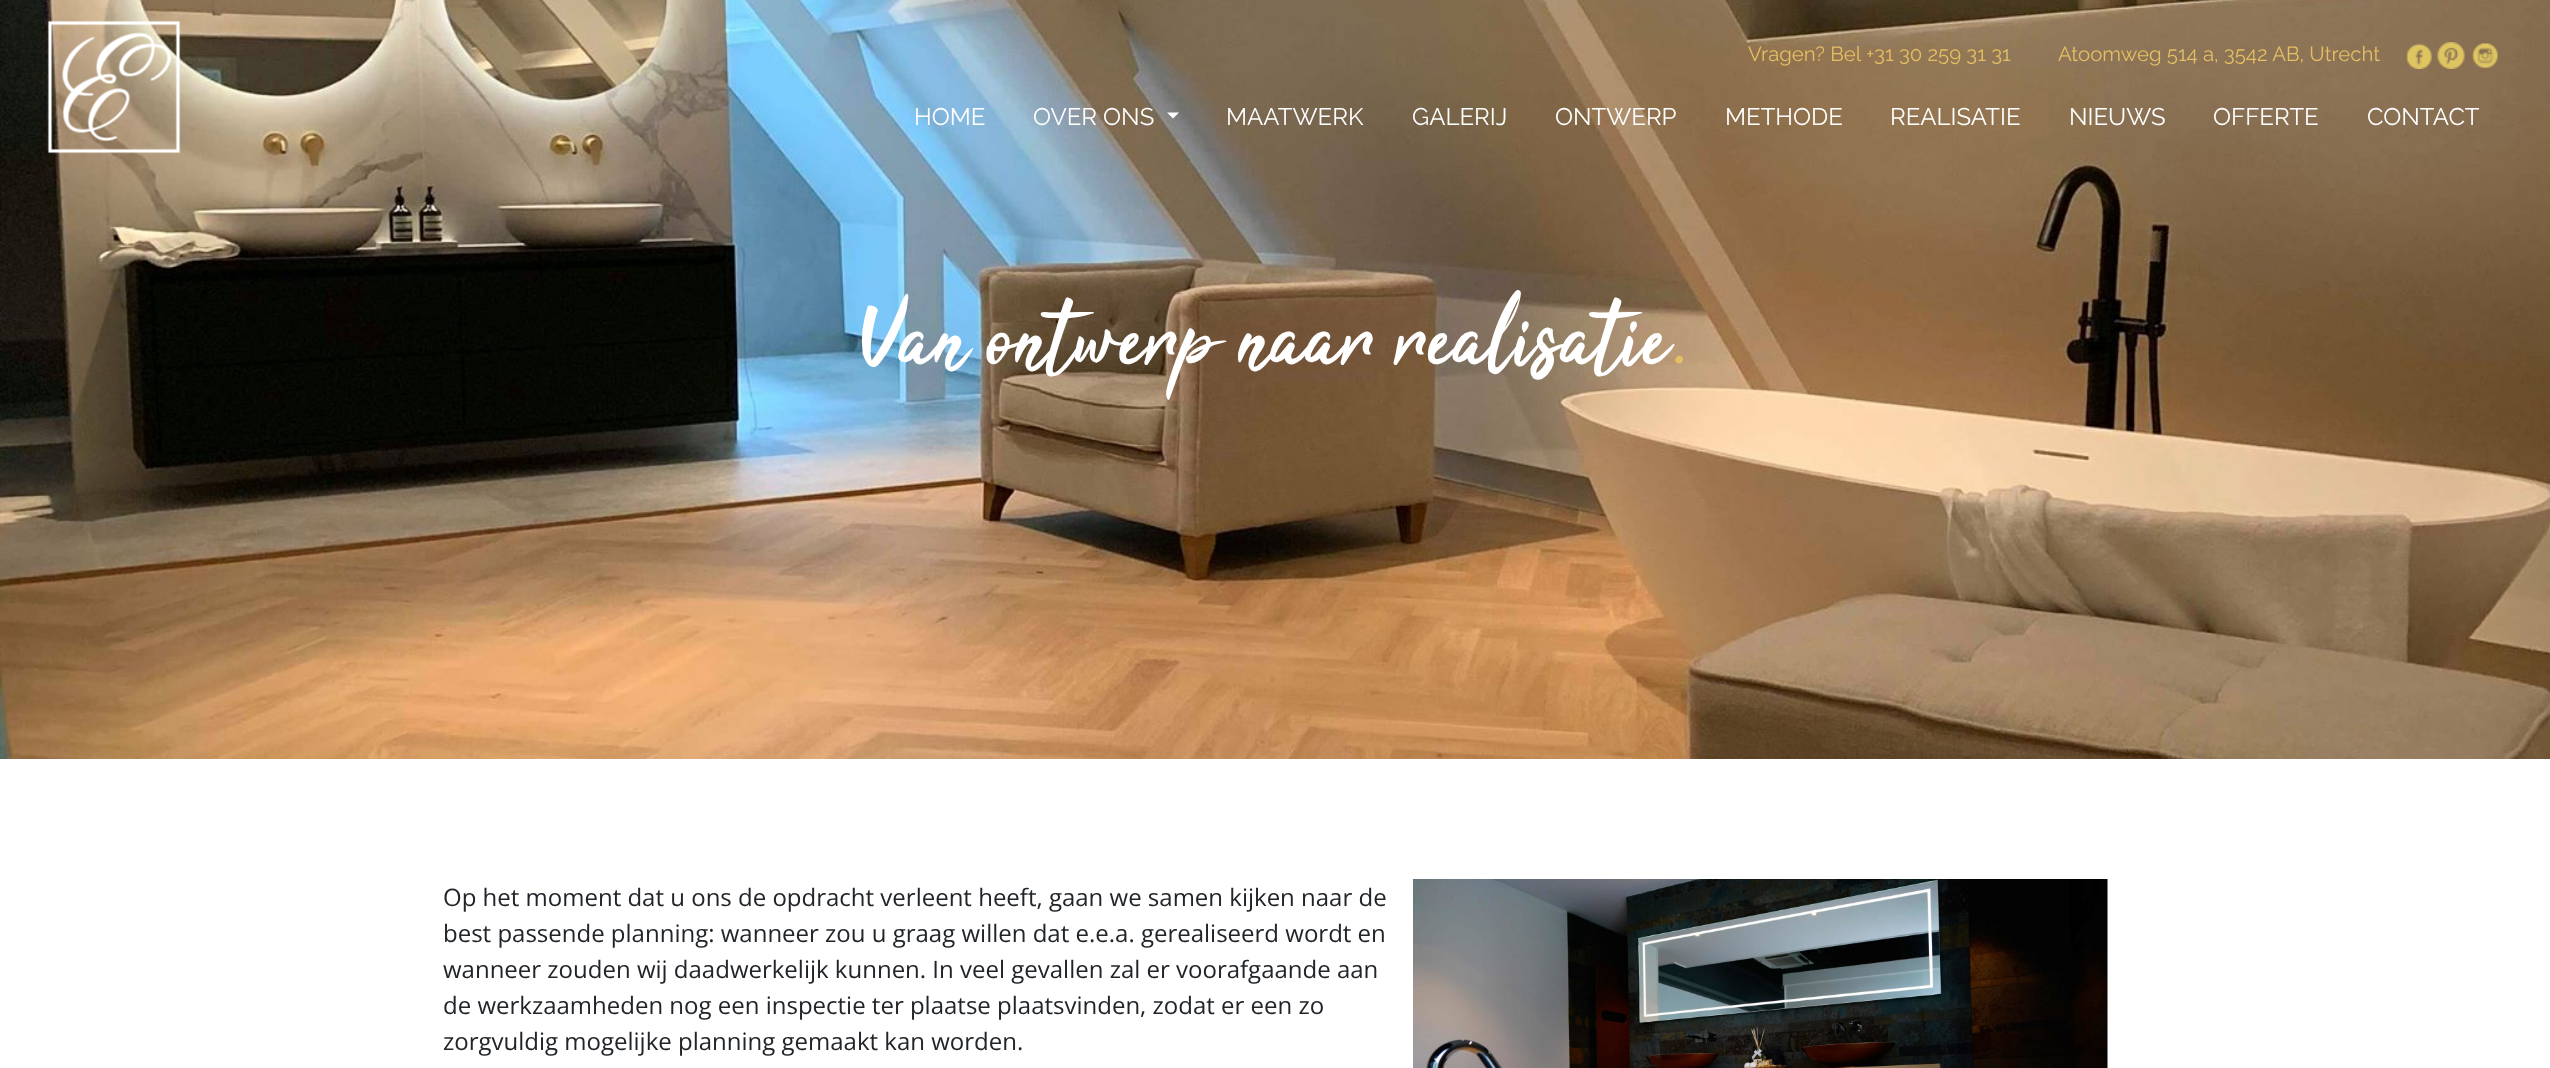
<?xml version="1.0" encoding="UTF-8"?>
<svg xmlns="http://www.w3.org/2000/svg" xmlns:xlink="http://www.w3.org/1999/xlink" width="2550" height="1068">
  <rect width="100%" height="100%" fill="#ffffff" />
  <image x="0" y="0" width="2550" height="759" xlink:href="image5.png" />
  <image x="47" y="20" width="134" height="134" xlink:href="image1.png" />
  <image x="2406" y="43" width="26" height="26" xlink:href="image2.png" />
  <image x="2437" y="42" width="28" height="27" xlink:href="image3.png" />
  <image x="2472" y="43" width="26" height="26" xlink:href="image4.png" />
  <path d="M 1167 112.5 h 12 l -6 6 z" fill="#ffffff" />
  <image x="1413" y="879" width="695" height="189" xlink:href="image6.png" />
  <text x="1748" y="61" style="font-family: Raleway; font-size: 20.4px; font-weight: 100; fill: #e4bf64">Vragen? Bel +31 30 259 31 31</text>
  <text x="2058" y="61" style="font-family: Raleway; font-size: 20.4px; font-weight: 100; fill: #e4bf64">Atoomweg 514 a, 3542 AB, Utrecht</text>
  <text x="914" y="125" style="font-family: Raleway; font-size: 24px; font-weight: 100; fill: #ffffff">HOME</text>
  <text x="1033" y="125" style="font-family: Raleway; font-size: 24px; font-weight: 100; fill: #ffffff">OVER ONS</text>
  <text x="1226" y="125" style="font-family: Raleway; font-size: 24px; font-weight: 100; fill: #ffffff">MAATWERK</text>
  <text x="1412" y="125" style="font-family: Raleway; font-size: 24px; font-weight: 100; fill: #ffffff">GALERIJ</text>
  <text x="1555" y="125" style="font-family: Raleway; font-size: 24px; font-weight: 100; fill: #ffffff">ONTWERP</text>
  <text x="1725" y="125" style="font-family: Raleway; font-size: 24px; font-weight: 100; fill: #ffffff">METHODE</text>
  <text x="1890" y="125" style="font-family: Raleway; font-size: 24px; font-weight: 100; fill: #ffffff">REALISATIE</text>
  <text x="2069" y="125" style="font-family: Raleway; font-size: 24px; font-weight: 100; fill: #ffffff">NIEUWS</text>
  <text x="2213" y="125" style="font-family: Raleway; font-size: 24px; font-weight: 100; fill: #ffffff">OFFERTE</text>
  <text x="2367" y="125" style="font-family: Raleway; font-size: 24px; font-weight: 100; fill: #ffffff">CONTACT</text>
  <text x="862" y="364" style="font-family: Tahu; font-size: 96px; fill: #ffffff">Van ontwerp naar realisatie</text>
  <text x="1671" y="364" style="font-family: Tahu; font-size: 96px; fill: #e4bf64">.</text>
  <text x="443" y="906" style="font-family: Open Sans; font-size: 24px; fill: #212529">Op het moment dat u ons de opdracht verleent heeft, gaan we samen kijken naar de</text>
  <text x="443" y="942" style="font-family: Open Sans; font-size: 24px; fill: #212529">best passende planning: wanneer zou u graag willen dat e.e.a. gerealiseerd wordt en</text>
  <text x="443" y="978" style="font-family: Open Sans; font-size: 24px; fill: #212529">wanneer zouden wij daadwerkelijk kunnen. In veel gevallen zal er voorafgaande aan</text>
  <text x="443" y="1014" style="font-family: Open Sans; font-size: 24px; fill: #212529">de werkzaamheden nog een inspectie ter plaatse plaatsvinden, zodat er een zo</text>
  <text x="443" y="1050" style="font-family: Open Sans; font-size: 24px; fill: #212529">zorgvuldig mogelijke planning gemaakt kan worden.</text>
</svg>
